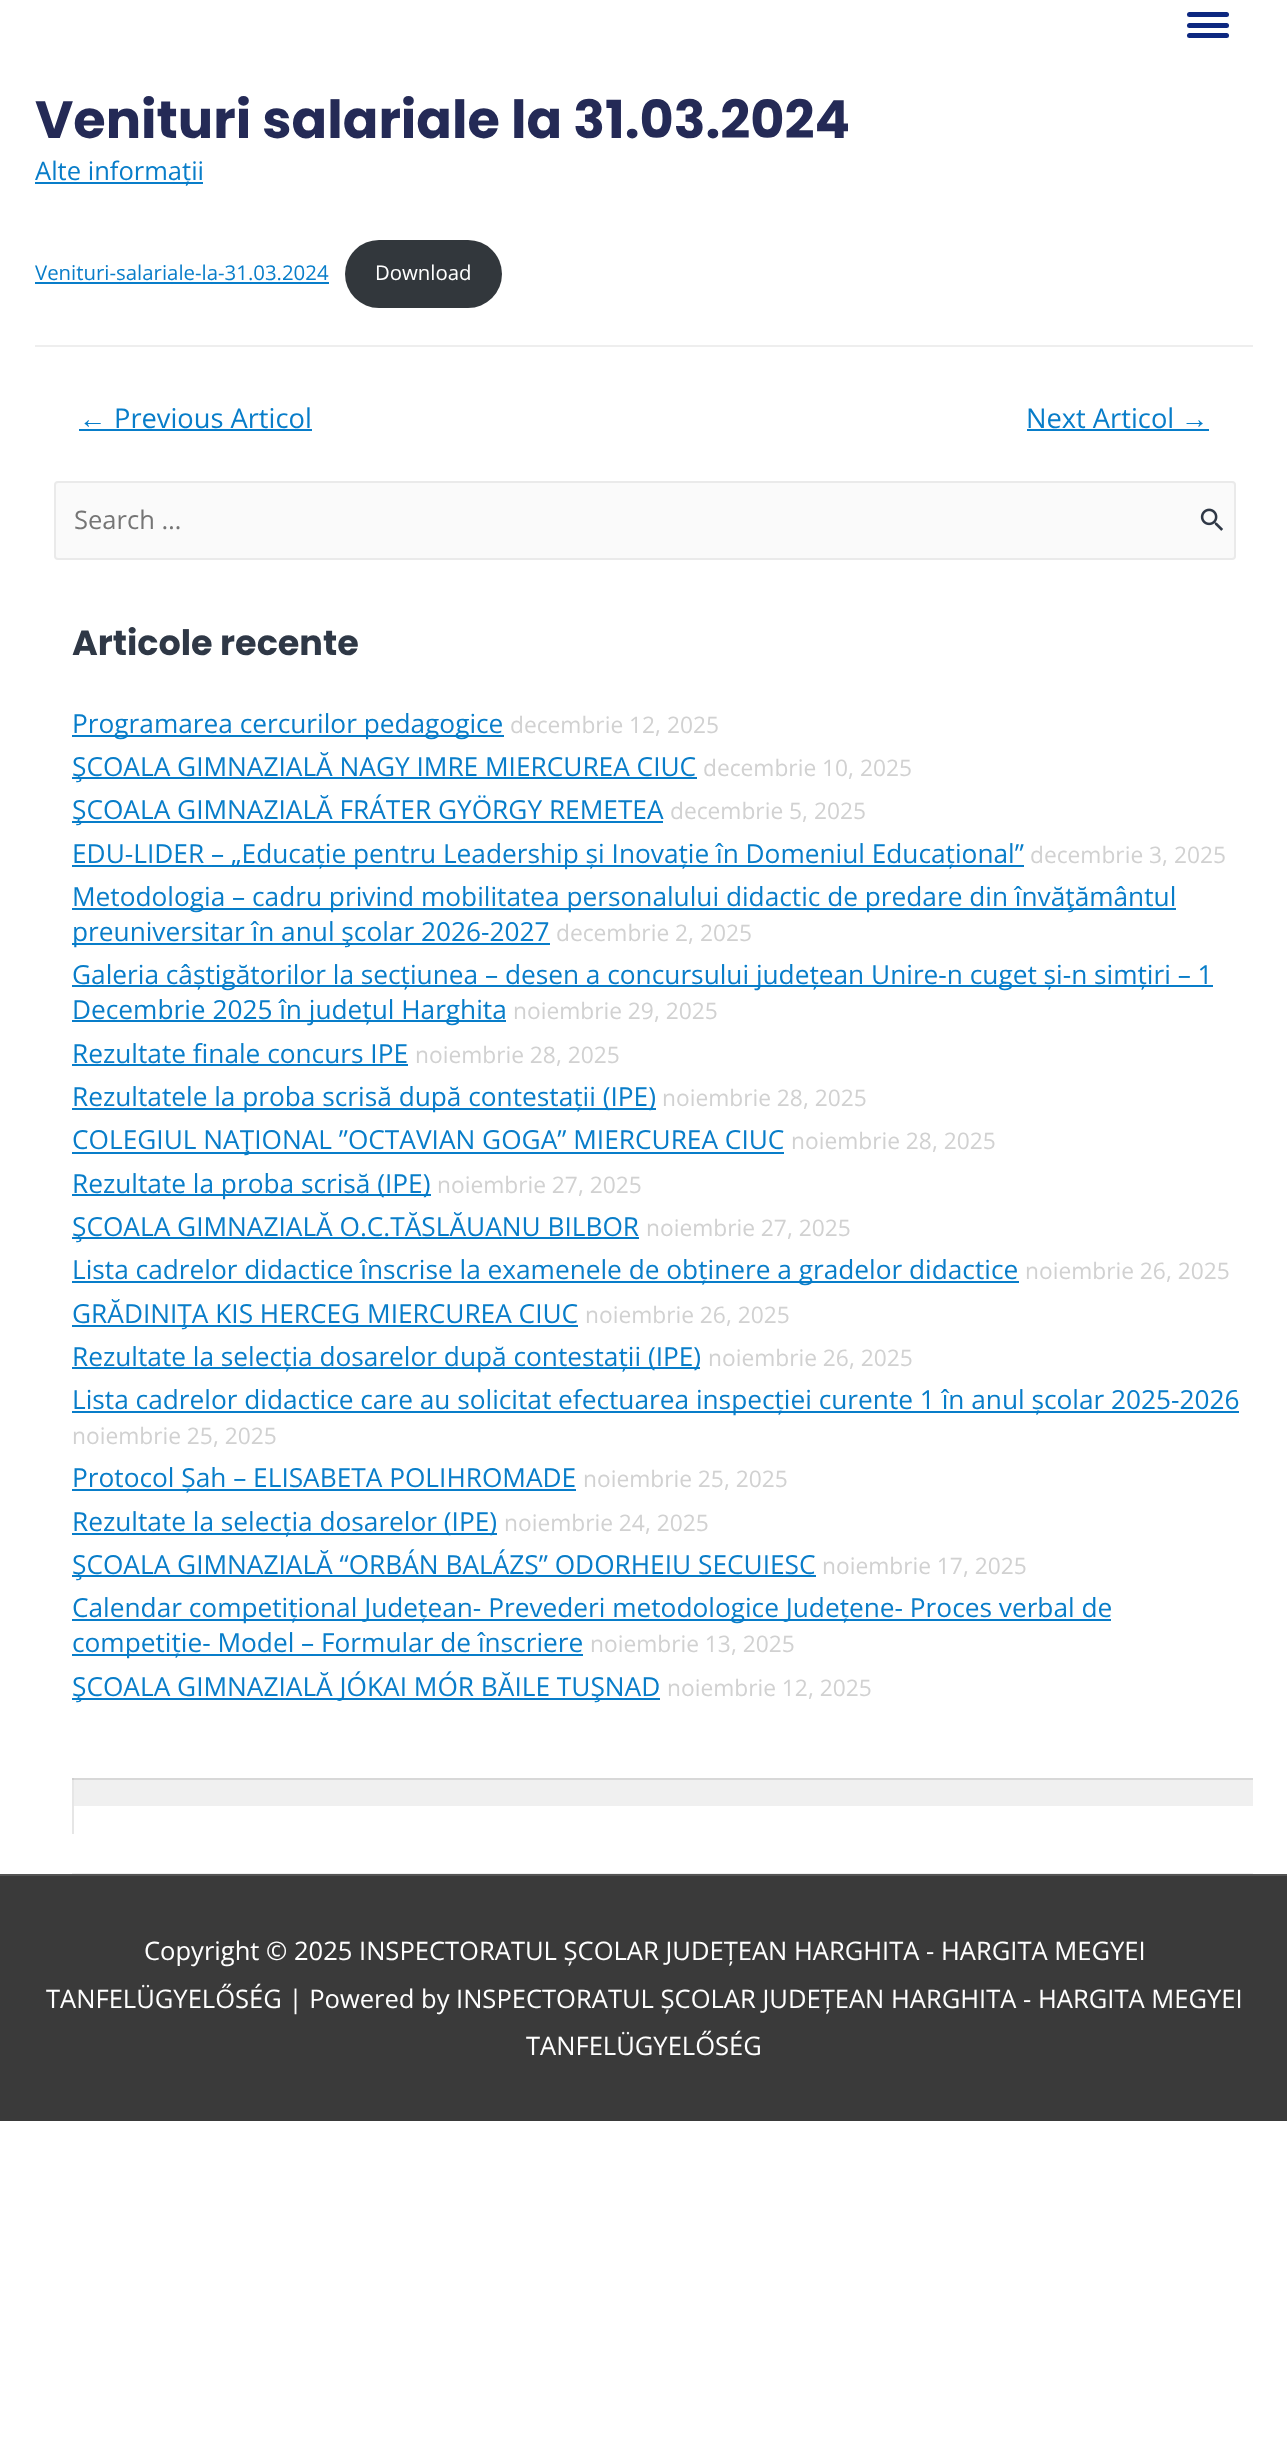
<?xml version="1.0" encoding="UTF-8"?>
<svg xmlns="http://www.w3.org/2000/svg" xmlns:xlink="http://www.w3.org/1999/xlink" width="1287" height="2447">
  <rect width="100%" height="100%" fill="#ffffff" />
  <rect x="72" y="1778" width="2" height="56" fill="#e6e6e6" />
  <rect x="72" y="1778" width="2" height="2" fill="#cfcfcf" />
  <rect x="1187" y="12" width="42" height="5" rx="2.5" fill="#0d2880" />
  <rect x="1187" y="23" width="42" height="5" rx="2.5" fill="#0d2880" />
  <rect x="1187" y="33" width="42" height="5" rx="2.5" fill="#0d2880" />
  <rect x="35" y="182" width="168" height="2" fill="#087dc9" />
  <rect x="35" y="282" width="294" height="2" fill="#087dc9" />
  <rect x="345" y="240" width="157" height="68" rx="34" fill="#32373c" />
  <rect x="35" y="345" width="1218" height="2" fill="#eeeeee" />
  <rect x="79" y="429" width="233" height="2" fill="#087dc9" />
  <rect x="1027" y="429" width="182" height="2" fill="#087dc9" />
  <rect x="55" y="482" width="1180" height="77" rx="3" fill="#fafafa" stroke="#eaeaea" stroke-width="2" />
  <image x="1200" y="508" width="23" height="23" xlink:href="image1.png" />
  <rect x="72" y="735" width="432" height="2" fill="#087dc9" />
  <rect x="72" y="777" width="625" height="2" fill="#087dc9" />
  <rect x="72" y="821" width="591" height="2" fill="#087dc9" />
  <rect x="72" y="865" width="952" height="2" fill="#087dc9" />
  <rect x="72" y="908" width="1104" height="2" fill="#087dc9" />
  <rect x="72" y="943" width="478" height="2" fill="#087dc9" />
  <rect x="72" y="985" width="1141" height="2" fill="#087dc9" />
  <rect x="72" y="1020" width="434" height="2" fill="#087dc9" />
  <rect x="72" y="1064" width="336" height="2" fill="#087dc9" />
  <rect x="72" y="1108" width="584" height="2" fill="#087dc9" />
  <rect x="72" y="1152" width="712" height="2" fill="#087dc9" />
  <rect x="72" y="1194" width="359" height="2" fill="#087dc9" />
  <rect x="72" y="1237" width="567" height="2" fill="#087dc9" />
  <rect x="72" y="1281" width="947" height="2" fill="#087dc9" />
  <rect x="72" y="1325" width="506" height="2" fill="#087dc9" />
  <rect x="72" y="1367" width="628" height="2" fill="#087dc9" />
  <rect x="72" y="1411" width="1167" height="2" fill="#087dc9" />
  <rect x="72" y="1489" width="504" height="2" fill="#087dc9" />
  <rect x="72" y="1533" width="425" height="2" fill="#087dc9" />
  <rect x="72" y="1575" width="744" height="2" fill="#087dc9" />
  <rect x="72" y="1619" width="1039" height="2" fill="#087dc9" />
  <rect x="72" y="1654" width="511" height="2" fill="#087dc9" />
  <rect x="72" y="1698" width="588" height="2" fill="#087dc9" />
  <rect x="72" y="1873" width="1181" height="1" fill="#f0f0f0" />
  <rect x="74" y="1780" width="1179" height="26" fill="#f0f0f0" />
  <rect x="74" y="1778" width="1179" height="2" fill="#d8d8d8" />
  <rect y="1874" width="1287" height="2" fill="#545454" />
  <rect y="1876" width="1287" height="245" fill="#3a3a3a" />
  <text x="35" y="138" style="font-family: Poppins; font-size: 52.5px; font-weight: bold; fill: #242a56">Venituri salariale la 31.03.2024</text>
  <text x="35" y="180" style="font-family: Open Sans; font-size: 25.55px; fill: #087dc9">Alte informații</text>
  <text x="35" y="280" style="font-family: Open Sans; font-size: 20.4px; fill: #087dc9">Venituri-salariale-la-31.03.2024</text>
  <text x="375" y="280" style="font-family: Open Sans; font-size: 20.4px; fill: #ffffff">Download</text>
  <text x="79" y="428" style="font-family: Liberation Sans; font-size: 27.25px; fill: #087dc9">←</text>
  <text x="114" y="428" style="font-family: Open Sans; font-size: 27.25px; fill: #087dc9">Previous Articol</text>
  <text x="1026" y="428" style="font-family: Open Sans; font-size: 27.25px; fill: #087dc9">Next Articol</text>
  <text x="1181" y="428" style="font-family: Liberation Sans; font-size: 27.25px; fill: #087dc9">→</text>
  <text x="74" y="529" style="font-family: Open Sans; font-size: 25.55px; fill: #757575">Search …</text>
  <text x="72" y="655" style="font-family: Poppins; font-size: 35px; font-weight: bold; fill: #2f3846">Articole recente</text>
  <text x="72" y="733" style="font-family: Open Sans; font-size: 26.25px; fill: #087dc9">Programarea cercurilor pedagogice</text>
  <text x="510" y="733" style="font-family: Open Sans; font-size: 22.75px; fill: #d1d1d1">decembrie 12, 2025</text>
  <text x="72" y="776" style="font-family: Open Sans; font-size: 26.25px; fill: #087dc9">ŞCOALA GIMNAZIALĂ NAGY IMRE MIERCUREA CIUC</text>
  <text x="703" y="776" style="font-family: Open Sans; font-size: 22.75px; fill: #d1d1d1">decembrie 10, 2025</text>
  <text x="72" y="819" style="font-family: Open Sans; font-size: 26.25px; fill: #087dc9">ŞCOALA GIMNAZIALĂ FRÁTER GYÖRGY REMETEA</text>
  <text x="670" y="819" style="font-family: Open Sans; font-size: 22.75px; fill: #d1d1d1">decembrie 5, 2025</text>
  <text x="72" y="863" style="font-family: Open Sans; font-size: 26.25px; fill: #087dc9">EDU-LIDER – „Educație pentru Leadership și Inovație în Domeniul Educațional”</text>
  <text x="1030" y="863" style="font-family: Open Sans; font-size: 22.75px; fill: #d1d1d1">decembrie 3, 2025</text>
  <text x="72" y="906" style="font-family: Open Sans; font-size: 26.25px; fill: #087dc9">Metodologia – cadru privind mobilitatea personalului didactic de predare din învăţământul</text>
  <text x="72" y="941" style="font-family: Open Sans; font-size: 26.25px; fill: #087dc9">preuniversitar în anul şcolar 2026-2027</text>
  <text x="556" y="941" style="font-family: Open Sans; font-size: 22.75px; fill: #d1d1d1">decembrie 2, 2025</text>
  <text x="72" y="984" style="font-family: Open Sans; font-size: 26.25px; fill: #087dc9">Galeria câștigătorilor la secțiunea – desen a concursului județean Unire-n cuget și-n simțiri – 1</text>
  <text x="72" y="1019" style="font-family: Open Sans; font-size: 26.25px; fill: #087dc9">Decembrie 2025 în județul Harghita</text>
  <text x="513" y="1019" style="font-family: Open Sans; font-size: 22.75px; fill: #d1d1d1">noiembrie 29, 2025</text>
  <text x="72" y="1063" style="font-family: Open Sans; font-size: 26.25px; fill: #087dc9">Rezultate finale concurs IPE</text>
  <text x="415" y="1063" style="font-family: Open Sans; font-size: 22.75px; fill: #d1d1d1">noiembrie 28, 2025</text>
  <text x="72" y="1106" style="font-family: Open Sans; font-size: 26.25px; fill: #087dc9">Rezultatele la proba scrisă după contestații (IPE)</text>
  <text x="662" y="1106" style="font-family: Open Sans; font-size: 22.75px; fill: #d1d1d1">noiembrie 28, 2025</text>
  <text x="72" y="1149" style="font-family: Open Sans; font-size: 26.25px; fill: #087dc9">COLEGIUL NAŢIONAL ”OCTAVIAN GOGA” MIERCUREA CIUC</text>
  <text x="791" y="1149" style="font-family: Open Sans; font-size: 22.75px; fill: #d1d1d1">noiembrie 28, 2025</text>
  <text x="72" y="1193" style="font-family: Open Sans; font-size: 26.25px; fill: #087dc9">Rezultate la proba scrisă (IPE)</text>
  <text x="437" y="1193" style="font-family: Open Sans; font-size: 22.75px; fill: #d1d1d1">noiembrie 27, 2025</text>
  <text x="72" y="1236" style="font-family: Open Sans; font-size: 26.25px; fill: #087dc9">ŞCOALA GIMNAZIALĂ O.C.TĂSLĂUANU BILBOR</text>
  <text x="646" y="1236" style="font-family: Open Sans; font-size: 22.75px; fill: #d1d1d1">noiembrie 27, 2025</text>
  <text x="72" y="1279" style="font-family: Open Sans; font-size: 26.25px; fill: #087dc9">Lista cadrelor didactice înscrise la examenele de obținere a gradelor didactice</text>
  <text x="1025" y="1279" style="font-family: Open Sans; font-size: 22.75px; fill: #d1d1d1">noiembrie 26, 2025</text>
  <text x="72" y="1323" style="font-family: Open Sans; font-size: 26.25px; fill: #087dc9">GRĂDINIŢA KIS HERCEG MIERCUREA CIUC</text>
  <text x="585" y="1323" style="font-family: Open Sans; font-size: 22.75px; fill: #d1d1d1">noiembrie 26, 2025</text>
  <text x="72" y="1366" style="font-family: Open Sans; font-size: 26.25px; fill: #087dc9">Rezultate la selecția dosarelor după contestații (IPE)</text>
  <text x="708" y="1366" style="font-family: Open Sans; font-size: 22.75px; fill: #d1d1d1">noiembrie 26, 2025</text>
  <text x="72" y="1409" style="font-family: Open Sans; font-size: 26.25px; fill: #087dc9">Lista cadrelor didactice care au solicitat efectuarea inspecției curente 1 în anul școlar 2025-2026</text>
  <text x="72" y="1444" style="font-family: Open Sans; font-size: 22.75px; fill: #d1d1d1">noiembrie 25, 2025</text>
  <text x="72" y="1487" style="font-family: Open Sans; font-size: 26.25px; fill: #087dc9">Protocol Șah – ELISABETA POLIHROMADE</text>
  <text x="583" y="1487" style="font-family: Open Sans; font-size: 22.75px; fill: #d1d1d1">noiembrie 25, 2025</text>
  <text x="72" y="1531" style="font-family: Open Sans; font-size: 26.25px; fill: #087dc9">Rezultate la selecția dosarelor (IPE)</text>
  <text x="504" y="1531" style="font-family: Open Sans; font-size: 22.75px; fill: #d1d1d1">noiembrie 24, 2025</text>
  <text x="72" y="1574" style="font-family: Open Sans; font-size: 26.25px; fill: #087dc9">ŞCOALA GIMNAZIALĂ “ORBÁN BALÁZS” ODORHEIU SECUIESC</text>
  <text x="822" y="1574" style="font-family: Open Sans; font-size: 22.75px; fill: #d1d1d1">noiembrie 17, 2025</text>
  <text x="72" y="1617" style="font-family: Open Sans; font-size: 26.25px; fill: #087dc9">Calendar competițional Județean- Prevederi metodologice Județene- Proces verbal de</text>
  <text x="72" y="1652" style="font-family: Open Sans; font-size: 26.25px; fill: #087dc9">competiție- Model – Formular de înscriere</text>
  <text x="590" y="1652" style="font-family: Open Sans; font-size: 22.75px; fill: #d1d1d1">noiembrie 13, 2025</text>
  <text x="72" y="1696" style="font-family: Open Sans; font-size: 26.25px; fill: #087dc9">ŞCOALA GIMNAZIALĂ JÓKAI MÓR BĂILE TUŞNAD</text>
  <text x="667" y="1696" style="font-family: Open Sans; font-size: 22.75px; fill: #d1d1d1">noiembrie 12, 2025</text>
  <text x="144" y="1960" style="font-family: Open Sans; font-size: 25.55px; fill: #ffffff">Copyright © 2025</text>
  <text x="359" y="1960" style="font-family: Open Sans; font-size: 25.55px; fill: #ffffff">INSPECTORATUL ȘCOLAR JUDEȚEAN HARGHITA - HARGITA MEGYEI</text>
  <text x="46" y="2008" style="font-family: Open Sans; font-size: 25.55px; fill: #ffffff">TANFELÜGYELŐSÉG | Powered by</text>
  <text x="456" y="2008" style="font-family: Open Sans; font-size: 25.55px; fill: #ffffff">INSPECTORATUL ȘCOLAR JUDEȚEAN HARGHITA - HARGITA MEGYEI</text>
  <text x="526" y="2055" style="font-family: Open Sans; font-size: 25.55px; fill: #ffffff">TANFELÜGYELŐSÉG</text>
</svg>
